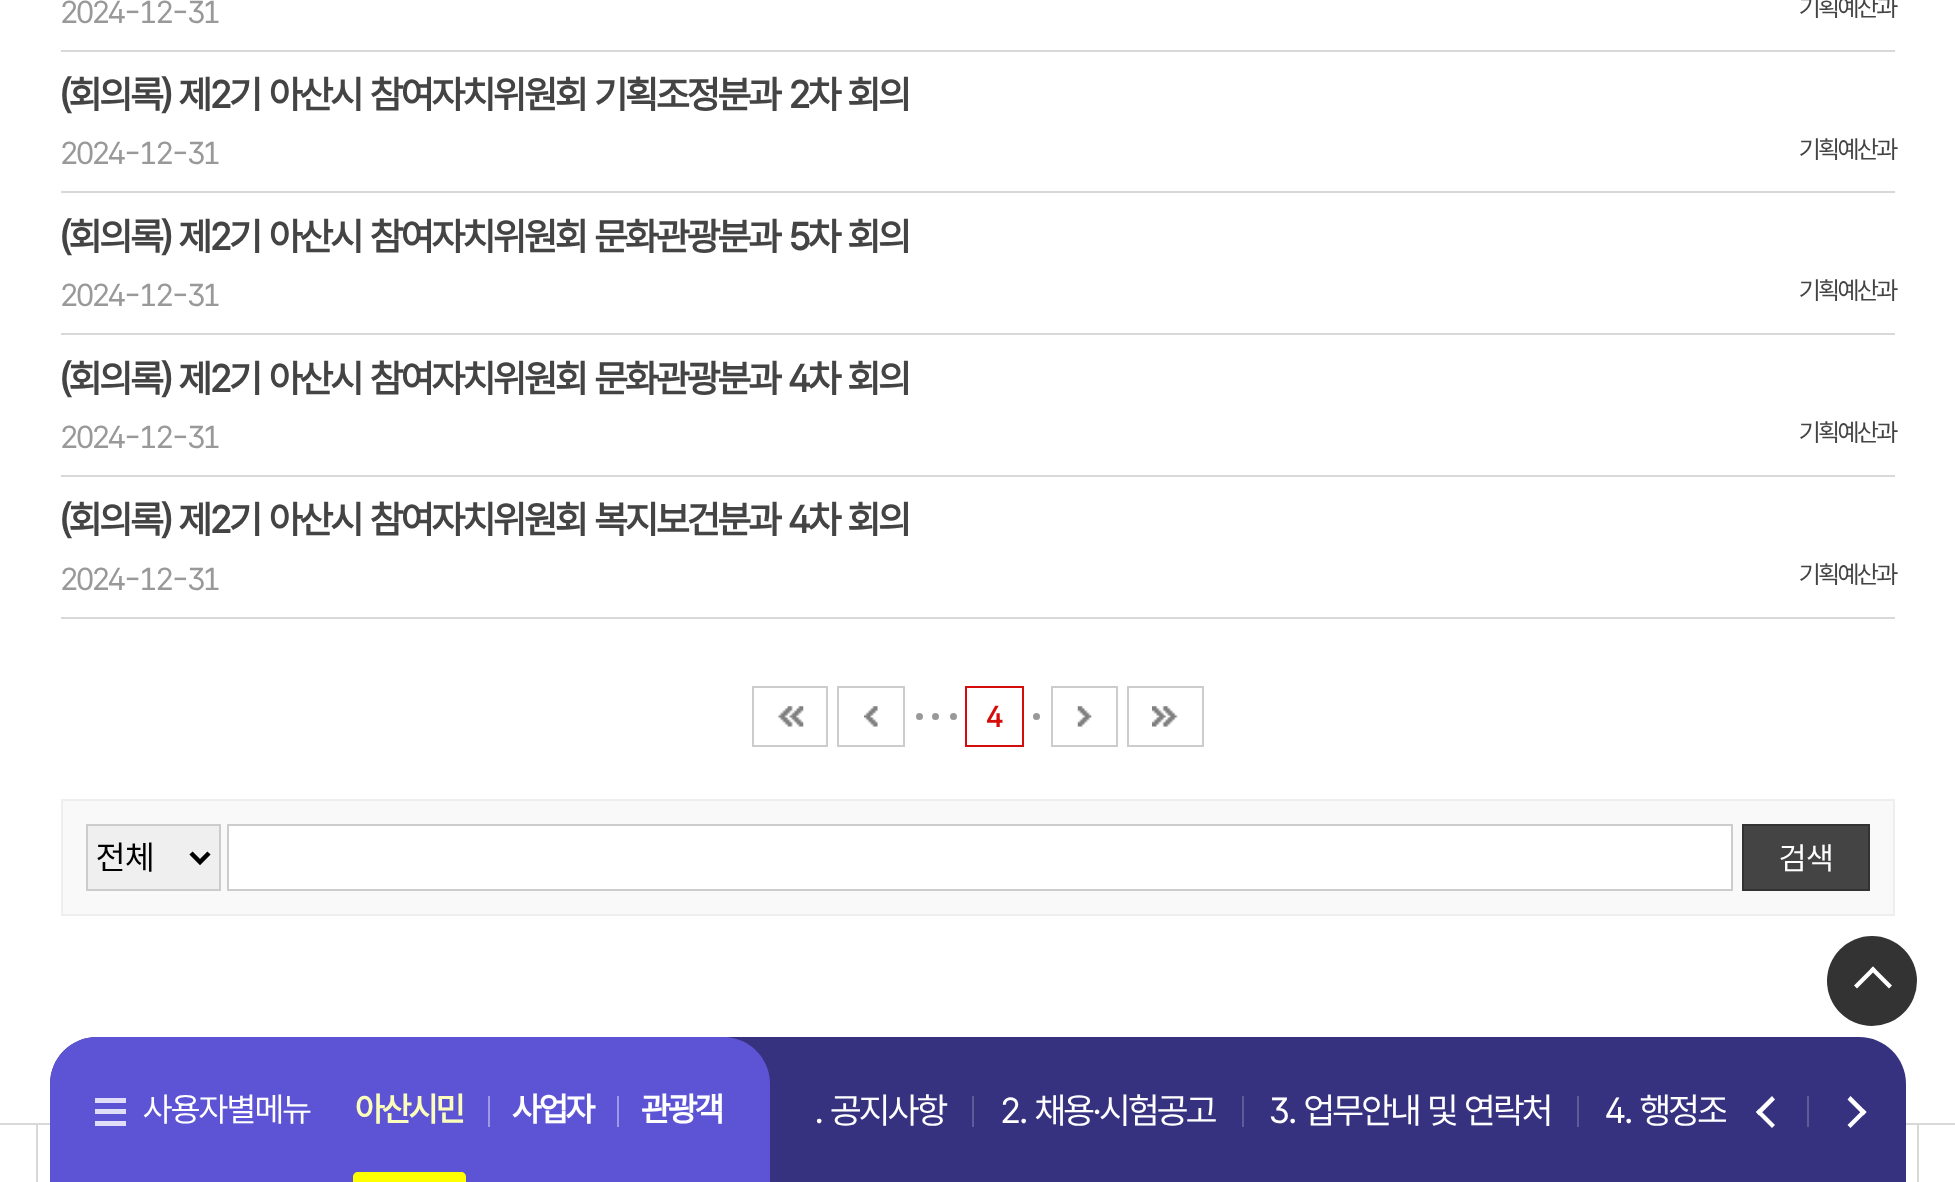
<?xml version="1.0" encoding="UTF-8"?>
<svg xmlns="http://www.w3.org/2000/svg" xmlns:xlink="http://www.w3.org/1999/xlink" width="1955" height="1182">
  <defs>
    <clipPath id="clip1"><rect x="770" y="1060" width="956" height="101" /></clipPath>
  </defs>
  <rect width="100%" height="100%" fill="#ffffff" />
  <rect x="61" y="50" width="1834" height="2" fill="#d9d8d7" />
  <rect x="61" y="191" width="1834" height="2" fill="#d9d8d7" />
  <rect x="61" y="333" width="1834" height="2" fill="#d9d8d7" />
  <rect x="61" y="475" width="1834" height="2" fill="#d9d8d7" />
  <rect x="61" y="617" width="1834" height="2" fill="#d9d8d7" />
  <rect x="753" y="687" width="74" height="59" fill="none" stroke="#cccccc" stroke-width="2" />
  <image x="778" y="706" width="26" height="21" xlink:href="image1.png" />
  <rect x="838" y="687" width="66" height="59" fill="none" stroke="#cccccc" stroke-width="2" />
  <image x="864" y="706" width="14" height="21" xlink:href="image2.png" />
  <circle cx="919.5" cy="716.5" r="2.5" fill="#989898" stroke="#999999" stroke-width="2" />
  <circle cx="935.5" cy="716.5" r="2.5" fill="#989898" stroke="#999999" stroke-width="2" />
  <circle cx="953.5" cy="716.5" r="2.5" fill="#989898" stroke="#999999" stroke-width="2" />
  <rect x="966" y="687" width="57" height="59" fill="none" stroke="#d50c0c" stroke-width="2" />
  <circle cx="1036.5" cy="716.5" r="2.5" fill="#989898" stroke="#999999" stroke-width="2" />
  <rect x="1052" y="687" width="65" height="59" fill="none" stroke="#cccccc" stroke-width="2" />
  <image x="1077" y="706" width="15" height="21" xlink:href="image3.png" />
  <rect x="1128" y="687" width="75" height="59" fill="none" stroke="#cccccc" stroke-width="2" />
  <image x="1152" y="706" width="26" height="21" xlink:href="image4.png" />
  <rect x="62" y="800" width="1832" height="115" fill="#f9f9f9" stroke="#eeeeee" stroke-width="2" />
  <rect x="87" y="825" width="133" height="65" fill="#efefef" stroke="#cccccc" stroke-width="2" />
  <path d="M 191 853 l 9 9 l 9 -9" fill="none" stroke="#000000" stroke-width="4.5" />
  <rect x="228" y="825" width="1504" height="65" fill="#ffffff" stroke="#cccccc" stroke-width="2" />
  <rect x="1743" y="825" width="126" height="65" fill="#444444" stroke="#333333" stroke-width="2" />
  <circle cx="1872" cy="981" r="45" fill="#333333" />
  <path d="M 1854 985.5 l 19 -19 l 3 3 l -19 19 z" fill="#ffffff" />
  <path d="M 1870 969.5 l 3 -3 l 19 19 l -3 3 z" fill="#ffffff" />
  <rect y="1123" width="1955" height="2" fill="#d8d8d8" />
  <rect x="36" y="1125" width="2" height="57" fill="#d8d8d8" />
  <rect x="1917" y="1125" width="2" height="57" fill="#d8d8d8" />
  <path d="M 97 1037 h 1762 c 26 0 47 21 47 47 v 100 h -1856 v -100 c 0 -26 21 -47 47 -47 z" fill="#373280" />
  <path d="M 97 1037 h 626 c 26 0 47 21 47 47 v 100 h -720 v -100 c 0 -26 21 -47 47 -47 z" fill="#5d54d5" />
  <rect x="95" y="1098" width="31" height="5" fill="#dfddf7" />
  <rect x="95" y="1121" width="31" height="5" fill="#dfddf7" />
  <rect x="95" y="1109" width="31" height="5" fill="#dfddf7" />
  <path d="M 358 1172 h 103 c 3 0 5 2 5 5 v 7 h -113 v -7 c 0 -3 2 -5 5 -5 z" fill="#ffff00" />
  <rect x="488" y="1096" width="2" height="31" fill="#9e98e6" />
  <rect x="617" y="1096" width="2" height="31" fill="#9e98e6" />
  <rect x="972" y="1096" width="2" height="31" fill="#5f5b99" />
  <rect x="1242" y="1096" width="2" height="31" fill="#5f5b99" />
  <rect x="1577" y="1096" width="2" height="31" fill="#5f5b99" />
  <path d="M 1759 1109 l 16 16 l -3 3 l -16 -16 z" fill="#ffffff" />
  <path d="M 1772 1096 l 3 3.5 l -16 16 l -3 -3.5 z" fill="#ffffff" />
  <rect x="1807" y="1096" width="2" height="31" fill="#5f5b99" />
  <path d="M 1850.5 1096 l 16 16 l -3 3.5 l -16 -16 z" fill="#ffffff" />
  <path d="M 1863.5 1109 l 3 3 l -16 16 l -3 -3 z" fill="#ffffff" />
  <text x="60" y="23" style="font-family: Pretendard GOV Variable; font-size: 31.5px; letter-spacing: -2.25px; fill: #999999">2024-12-31</text>
  <text x="1799" y="16" style="font-family: Pretendard GOV Variable; font-size: 25px; letter-spacing: -2.25px; fill: #444444">기획예산과</text>
  <text x="60" y="108" style="font-family: Pretendard GOV Variable; font-size: 38.25px; font-weight: bold; letter-spacing: -2.25px; fill: #444444">(회의록) 제2기 아산시 참여자치위원회 기획조정분과 2차 회의</text>
  <text x="60" y="164" style="font-family: Pretendard GOV Variable; font-size: 31.5px; letter-spacing: -2.25px; fill: #999999">2024-12-31</text>
  <text x="1799" y="158" style="font-family: Pretendard GOV Variable; font-size: 25px; letter-spacing: -2.25px; fill: #444444">기획예산과</text>
  <text x="60" y="250" style="font-family: Pretendard GOV Variable; font-size: 38.25px; font-weight: bold; letter-spacing: -2.25px; fill: #444444">(회의록) 제2기 아산시 참여자치위원회 문화관광분과 5차 회의</text>
  <text x="60" y="306" style="font-family: Pretendard GOV Variable; font-size: 31.5px; letter-spacing: -2.25px; fill: #999999">2024-12-31</text>
  <text x="1799" y="299" style="font-family: Pretendard GOV Variable; font-size: 25px; letter-spacing: -2.25px; fill: #444444">기획예산과</text>
  <text x="60" y="392" style="font-family: Pretendard GOV Variable; font-size: 38.25px; font-weight: bold; letter-spacing: -2.25px; fill: #444444">(회의록) 제2기 아산시 참여자치위원회 문화관광분과 4차 회의</text>
  <text x="60" y="448" style="font-family: Pretendard GOV Variable; font-size: 31.5px; letter-spacing: -2.25px; fill: #999999">2024-12-31</text>
  <text x="1799" y="441" style="font-family: Pretendard GOV Variable; font-size: 25px; letter-spacing: -2.25px; fill: #444444">기획예산과</text>
  <text x="60" y="533" style="font-family: Pretendard GOV Variable; font-size: 38.25px; font-weight: bold; letter-spacing: -2.25px; fill: #444444">(회의록) 제2기 아산시 참여자치위원회 복지보건분과 4차 회의</text>
  <text x="60" y="590" style="font-family: Pretendard GOV Variable; font-size: 31.5px; letter-spacing: -2.25px; fill: #999999">2024-12-31</text>
  <text x="1799" y="583" style="font-family: Pretendard GOV Variable; font-size: 25px; letter-spacing: -2.25px; fill: #444444">기획예산과</text>
  <text x="986" y="727" style="font-family: Pretendard GOV Variable; font-size: 29px; font-weight: bold; letter-spacing: -1.25px; fill: #d50c0c">4</text>
  <text x="96" y="869" style="font-family: Pretendard GOV Variable; font-size: 33.75px; fill: #000000">전체</text>
  <text x="1779" y="869" style="font-family: Pretendard GOV Variable; font-size: 31.5px; fill: #ffffff">검색</text>
  <text x="143" y="1121" style="font-family: Pretendard GOV Variable; font-size: 33.75px; letter-spacing: -1.25px; fill: #ffffff">사용자별메뉴</text>
  <text x="355" y="1121" style="font-family: Pretendard GOV Variable; font-size: 33.75px; font-weight: bold; letter-spacing: -2.25px; fill: #fafeba">아산시민</text>
  <text x="512" y="1121" style="font-family: Pretendard GOV Variable; font-size: 33.75px; font-weight: bold; letter-spacing: -2.25px; fill: #ffffff">사업자</text>
  <text x="641" y="1121" style="font-family: Pretendard GOV Variable; font-size: 33.75px; font-weight: bold; letter-spacing: -2.25px; fill: #ffffff">관광객</text>
  <text x="814" y="1123" style="font-family: Pretendard GOV Variable; font-size: 36px; letter-spacing: -2.25px; fill: #ffffff">. 공지사항</text>
  <text x="1000" y="1123" style="font-family: Pretendard GOV Variable; font-size: 36px; letter-spacing: -2.25px; fill: #ffffff">2. 채용·시험공고</text>
  <text x="1269" y="1123" style="font-family: Pretendard GOV Variable; font-size: 36px; letter-spacing: -2.25px; fill: #ffffff">3. 업무안내 및 연락처</text>
  <g clip-path="url(#clip1)">
    <text x="1605" y="1123" style="font-family: Pretendard GOV Variable; font-size: 36px; letter-spacing: -2.25px; fill: #ffffff">4. 행정조</text>
  </g>
</svg>
